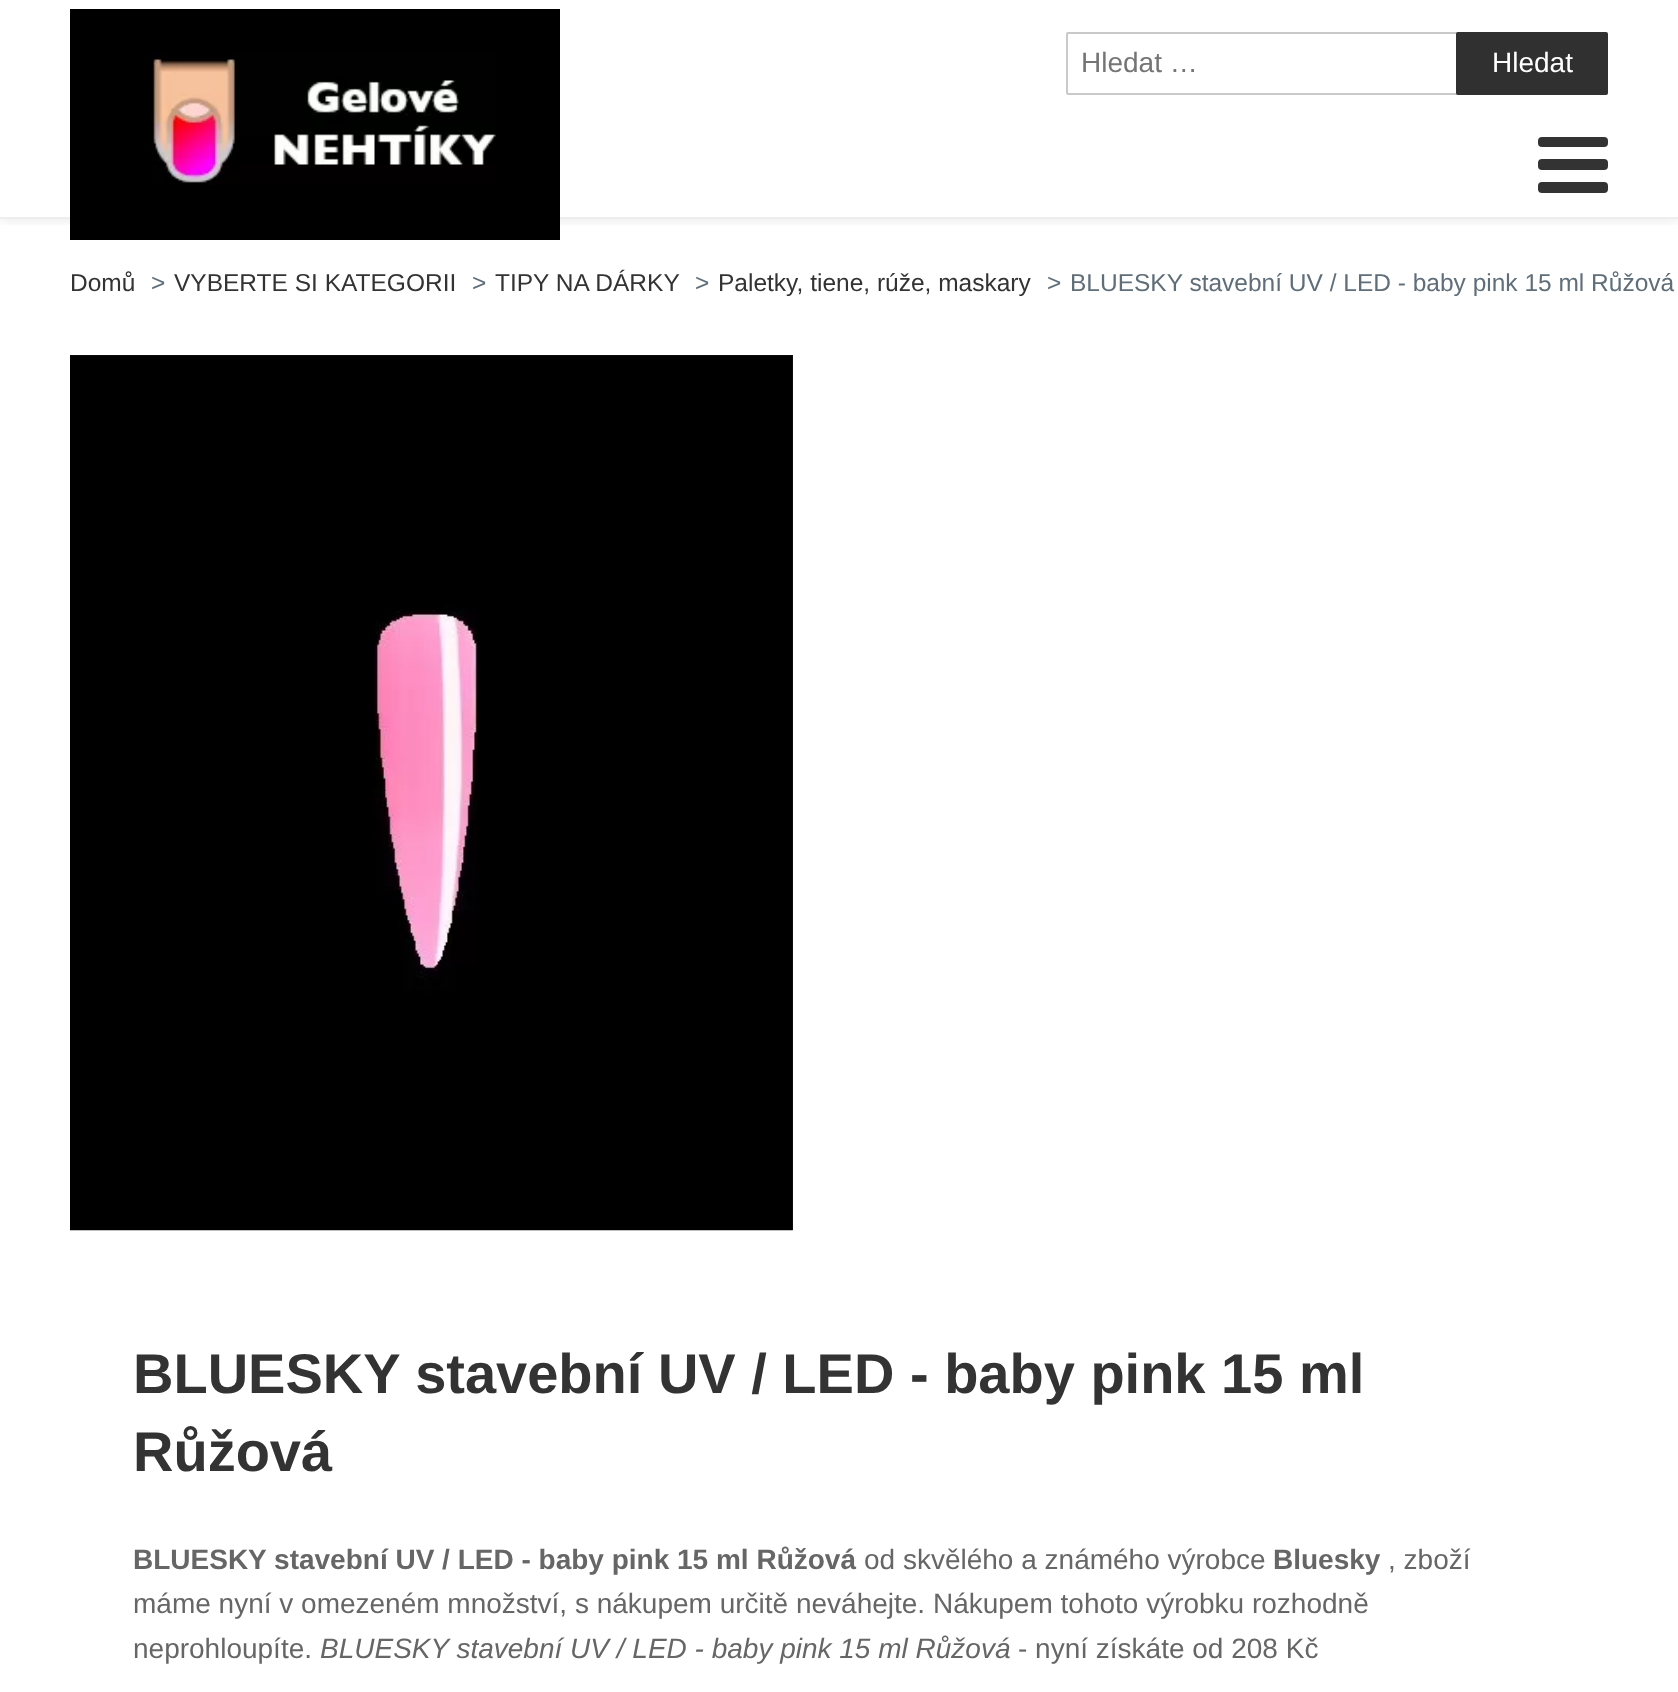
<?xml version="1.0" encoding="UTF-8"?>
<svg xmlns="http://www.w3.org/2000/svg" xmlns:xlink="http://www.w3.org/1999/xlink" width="1678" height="1692">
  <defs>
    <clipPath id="clip1"><rect x="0" y="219" width="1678" height="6" /></clipPath>
  </defs>
  <rect width="100%" height="100%" fill="#ffffff" />
  <g clip-path="url(#clip1)">
    <rect y="-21" width="1678" height="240" fill="#000000" fill-opacity="0.1" filter="blur(7px)" />
  </g>
  <rect y="217" width="1678" height="2" fill="#eeeeee" />
  <rect x="70" y="9" width="490" height="231" fill="#000000" />
  <image x="151" y="52" width="345" height="133" xlink:href="image1.png" />
  <rect x="1067" y="33" width="392" height="61" rx="1" fill="none" stroke="#c9c9c9" stroke-width="2" />
  <rect x="1456" y="32" width="152" height="63" rx="2" fill="#303030" />
  <rect x="1538" y="137" width="70" height="10" rx="4" fill="#333333" />
  <rect x="1538" y="159" width="70" height="11" rx="4" fill="#333333" />
  <rect x="1538" y="182" width="70" height="11" rx="4" fill="#333333" />
  <rect x="70" y="355" width="723" height="875" fill="#333333" />
  <image x="70" y="355" width="723" height="876" xlink:href="image2.png" />
  <text x="1081" y="72" style="font-family: Liberation Sans; font-size: 28px; fill: #757575">Hledat …</text>
  <text x="1492" y="72" style="font-family: Liberation Sans; font-size: 28px; fill: #ffffff">Hledat</text>
  <text x="70" y="291" style="font-family: Liberation Sans; font-size: 24.5px; fill: #333333">Domů</text>
  <text x="151" y="291" style="font-family: Liberation Sans; font-size: 24.5px; fill: #606e79">&gt;</text>
  <text x="174" y="291" style="font-family: Liberation Sans; font-size: 24.5px; fill: #333333">VYBERTE SI KATEGORII</text>
  <text x="472" y="291" style="font-family: Liberation Sans; font-size: 24.5px; fill: #606e79">&gt;</text>
  <text x="495" y="291" style="font-family: Liberation Sans; font-size: 24.5px; fill: #333333">TIPY NA DÁRKY</text>
  <text x="695" y="291" style="font-family: Liberation Sans; font-size: 24.5px; fill: #606e79">&gt;</text>
  <text x="718" y="291" style="font-family: Liberation Sans; font-size: 24.5px; fill: #333333">Paletky, tiene, rúže, maskary</text>
  <text x="1047" y="291" style="font-family: Liberation Sans; font-size: 24.5px; fill: #606e79">&gt;</text>
  <text x="1070" y="291" style="font-family: Liberation Sans; font-size: 24.5px; fill: #606e79">BLUESKY stavební UV / LED - baby pink 15 ml Růžová</text>
  <text x="133" y="1393" style="font-family: Liberation Sans; font-size: 56px; font-weight: bold; fill: #333333">BLUESKY stavební UV / LED - baby pink 15 ml</text>
  <text x="133" y="1471" style="font-family: Liberation Sans; font-size: 56px; font-weight: bold; fill: #333333">Růžová</text>
  <text x="133" y="1569" style="font-family: Liberation Sans; font-size: 28px; font-weight: bold; fill: #666666">BLUESKY stavební UV / LED - baby pink 15 ml Růžová</text>
  <text x="864" y="1569" style="font-family: Liberation Sans; font-size: 28px; fill: #666666">od skvělého a známého výrobce</text>
  <text x="1273" y="1569" style="font-family: Liberation Sans; font-size: 28px; font-weight: bold; fill: #666666">Bluesky</text>
  <text x="1388" y="1569" style="font-family: Liberation Sans; font-size: 28px; fill: #666666">, zboží</text>
  <text x="133" y="1613" style="font-family: Liberation Sans; font-size: 28px; fill: #666666">máme nyní v omezeném množství, s nákupem určitě neváhejte. Nákupem tohoto výrobku rozhodně</text>
  <text x="133" y="1658" style="font-family: Liberation Sans; font-size: 28px; fill: #666666">neprohloupíte.</text>
  <text x="320" y="1658" style="font-family: Liberation Sans; font-size: 28px; font-style: italic; fill: #666666">BLUESKY stavební UV / LED - baby pink 15 ml Růžová</text>
  <text x="1018" y="1658" style="font-family: Liberation Sans; font-size: 28px; fill: #666666">- nyní získáte od 208 Kč</text>
</svg>
